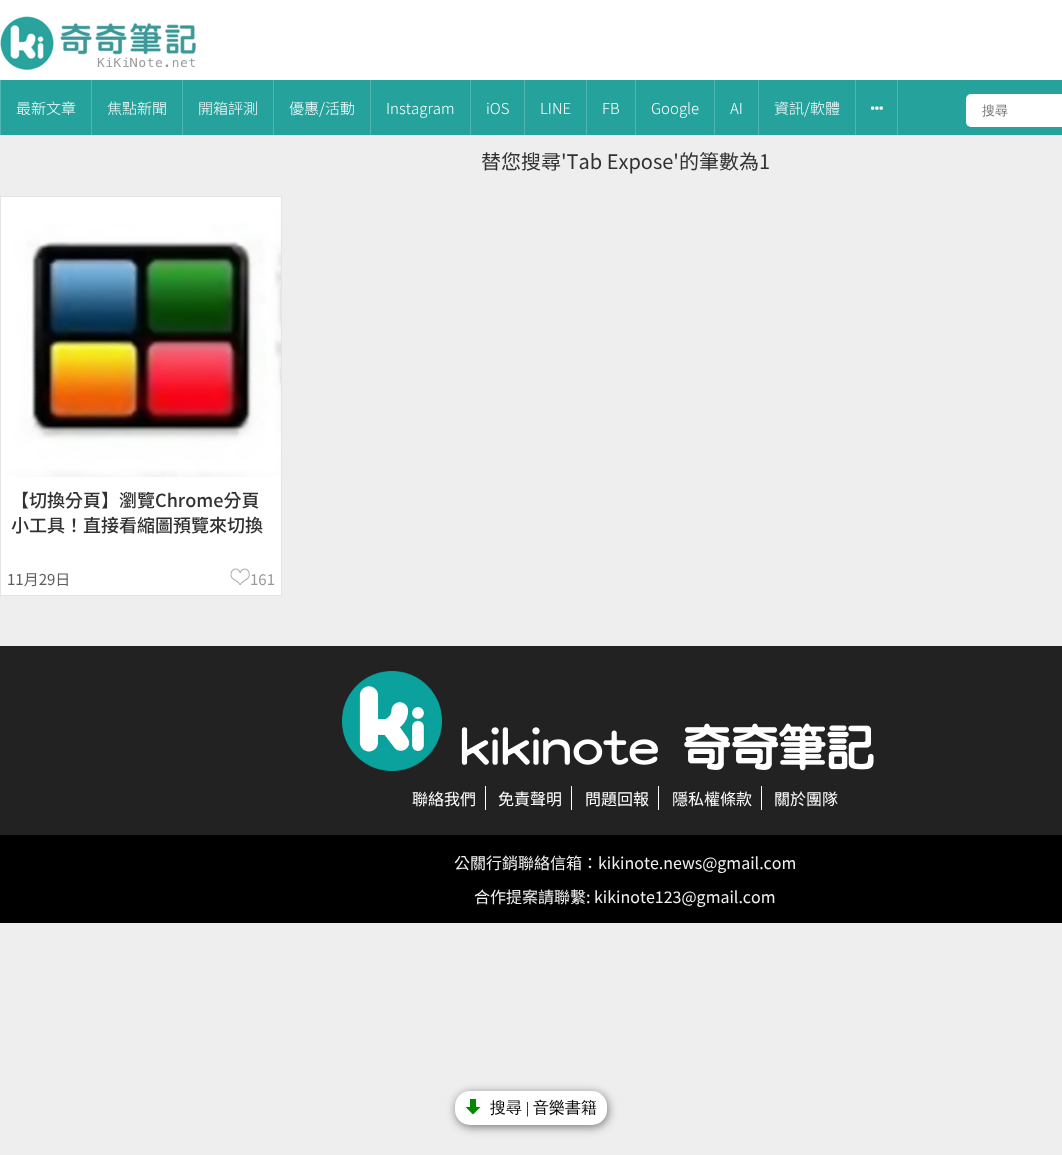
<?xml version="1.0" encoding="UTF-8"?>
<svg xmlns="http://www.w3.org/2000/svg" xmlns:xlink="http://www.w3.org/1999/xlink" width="1062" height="1155">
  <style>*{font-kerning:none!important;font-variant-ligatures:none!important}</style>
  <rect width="100%" height="100%" fill="#eeeeee" />
  <rect width="1062" height="80" fill="#ffffff" />
  <image x="0" y="16" width="196" height="54" xlink:href="image1.png" />
  <rect x="1" y="80" width="1061" height="55" fill="#25a29c" />
  <rect x="91" y="80" width="1" height="55" fill="#51b5b0" />
  <rect y="80" width="1" height="55" fill="#51b5b0" />
  <rect x="182" y="80" width="1" height="55" fill="#51b5b0" />
  <rect x="273" y="80" width="1" height="55" fill="#51b5b0" />
  <rect x="370" y="80" width="1" height="55" fill="#51b5b0" />
  <rect x="470" y="80" width="1" height="55" fill="#51b5b0" />
  <rect x="524" y="80" width="1" height="55" fill="#51b5b0" />
  <rect x="586" y="80" width="1" height="55" fill="#51b5b0" />
  <rect x="635" y="80" width="1" height="55" fill="#51b5b0" />
  <rect x="714" y="80" width="1" height="55" fill="#51b5b0" />
  <rect x="758" y="80" width="1" height="55" fill="#51b5b0" />
  <rect x="855" y="80" width="1" height="55" fill="#51b5b0" />
  <rect x="897" y="80" width="1" height="55" fill="#51b5b0" />
  <image x="871" y="106" width="12" height="4" xlink:href="image2.png" />
  <rect x="966" y="94" width="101" height="33" rx="5" fill="#ffffff" />
  <rect x="1" y="477" width="280" height="118" fill="#ffffff" />
  <rect x="0.5" y="196.5" width="281" height="399" fill="none" stroke="#e4e4e4" />
  <image x="1" y="197" width="280" height="280" xlink:href="image3.png" />
  <image x="230" y="568" width="20" height="17" xlink:href="image4.png" />
  <rect y="646" width="1062" height="189" fill="#222222" />
  <image x="342" y="671" width="100" height="100" xlink:href="image5.png" />
  <image x="461" y="723" width="413" height="48" xlink:href="image6.png" />
  <rect x="485" y="786" width="1" height="24" fill="#ffffff" />
  <rect x="571" y="786" width="1" height="24" fill="#ffffff" />
  <rect x="658" y="786" width="1" height="24" fill="#ffffff" />
  <rect x="761" y="786" width="1" height="24" fill="#ffffff" />
  <rect y="835" width="1062" height="88" fill="#000000" />
  <rect x="456" y="1093" width="152" height="34" rx="15" fill="#000000" fill-opacity="0.5" filter="blur(5px)" />
  <rect x="455" y="1091" width="152" height="34" rx="15" fill="#ffffff" />
  <image x="465" y="1099" width="16" height="16" xlink:href="image7.png" />
  <text x="16" y="114" style="font-family: Noto Sans TC; font-size: 15px; font-weight: 300; fill: #ffffff">最新文章</text>
  <text x="107" y="114" style="font-family: Noto Sans TC; font-size: 15px; font-weight: 300; fill: #ffffff">焦點新聞</text>
  <text x="198" y="114" style="font-family: Noto Sans TC; font-size: 15px; font-weight: 300; fill: #ffffff">開箱評測</text>
  <text x="289" y="114" style="font-family: Noto Sans TC; font-size: 15px; font-weight: 300; fill: #ffffff">優惠/活動</text>
  <text x="386" y="114" style="font-family: Noto Sans TC; font-size: 15px; font-weight: 300; fill: #ffffff">Instagram</text>
  <text x="486" y="114" style="font-family: Noto Sans TC; font-size: 15px; font-weight: 300; fill: #ffffff">iOS</text>
  <text x="540" y="114" style="font-family: Noto Sans TC; font-size: 15px; font-weight: 300; fill: #ffffff">LINE</text>
  <text x="602" y="114" style="font-family: Noto Sans TC; font-size: 15px; font-weight: 300; fill: #ffffff">FB</text>
  <text x="651" y="114" style="font-family: Noto Sans TC; font-size: 15px; font-weight: 300; fill: #ffffff">Google</text>
  <text x="730" y="114" style="font-family: Noto Sans TC; font-size: 15px; font-weight: 300; fill: #ffffff">AI</text>
  <text x="774" y="114" style="font-family: Noto Sans TC; font-size: 15px; font-weight: 300; fill: #ffffff">資訊/軟體</text>
  <text x="982" y="115" style="font-family: WenQuanYi Zen Hei; font-size: 13px; font-weight: 500; fill: #757575">搜尋</text>
  <text x="481" y="169" style="font-family: Noto Sans TC; font-size: 20px; fill: #313131">替您搜尋'Tab Expose'的筆數為1</text>
  <text x="11" y="507" style="font-family: Noto Sans TC; font-size: 18px; font-weight: 500; fill: #313131">【切換分頁】瀏覽Chrome分頁</text>
  <text x="11" y="532" style="font-family: Noto Sans TC; font-size: 18px; font-weight: 500; fill: #313131">小工具！直接看縮圖預覽來切換</text>
  <text x="7" y="585" style="font-family: Noto Sans TC; font-size: 15px; fill: #606060">11月29日</text>
  <text x="250" y="585" style="font-family: Noto Sans TC; font-size: 15px; fill: #999999">161</text>
  <text x="412" y="805" style="font-family: Noto Sans TC; font-size: 16px; fill: #ffffff">聯絡我們</text>
  <text x="498" y="805" style="font-family: Noto Sans TC; font-size: 16px; fill: #ffffff">免責聲明</text>
  <text x="585" y="805" style="font-family: Noto Sans TC; font-size: 16px; fill: #ffffff">問題回報</text>
  <text x="672" y="805" style="font-family: Noto Sans TC; font-size: 16px; fill: #ffffff">隱私權條款</text>
  <text x="774" y="805" style="font-family: Noto Sans TC; font-size: 16px; fill: #ffffff">關於團隊</text>
  <text x="454" y="869" style="font-family: Noto Sans TC; font-size: 16px; fill: #f0f0f0">公關行銷聯絡信箱：kikinote.news@gmail.com</text>
  <text x="474" y="903" style="font-family: Noto Sans TC; font-size: 16px; fill: #f0f0f0">合作提案請聯繫: kikinote123@gmail.com</text>
  <text x="490" y="1113" style="font-family: WenQuanYi Zen Hei; font-size: 16px; font-weight: 500; fill: #000000">搜尋</text>
  <text x="526" y="1113" style="font-family: Liberation Serif; font-size: 16px; fill: #000000">|</text>
  <text x="533" y="1113" style="font-family: WenQuanYi Zen Hei; font-size: 16px; font-weight: 500; fill: #000000">音樂書籍</text>
</svg>
